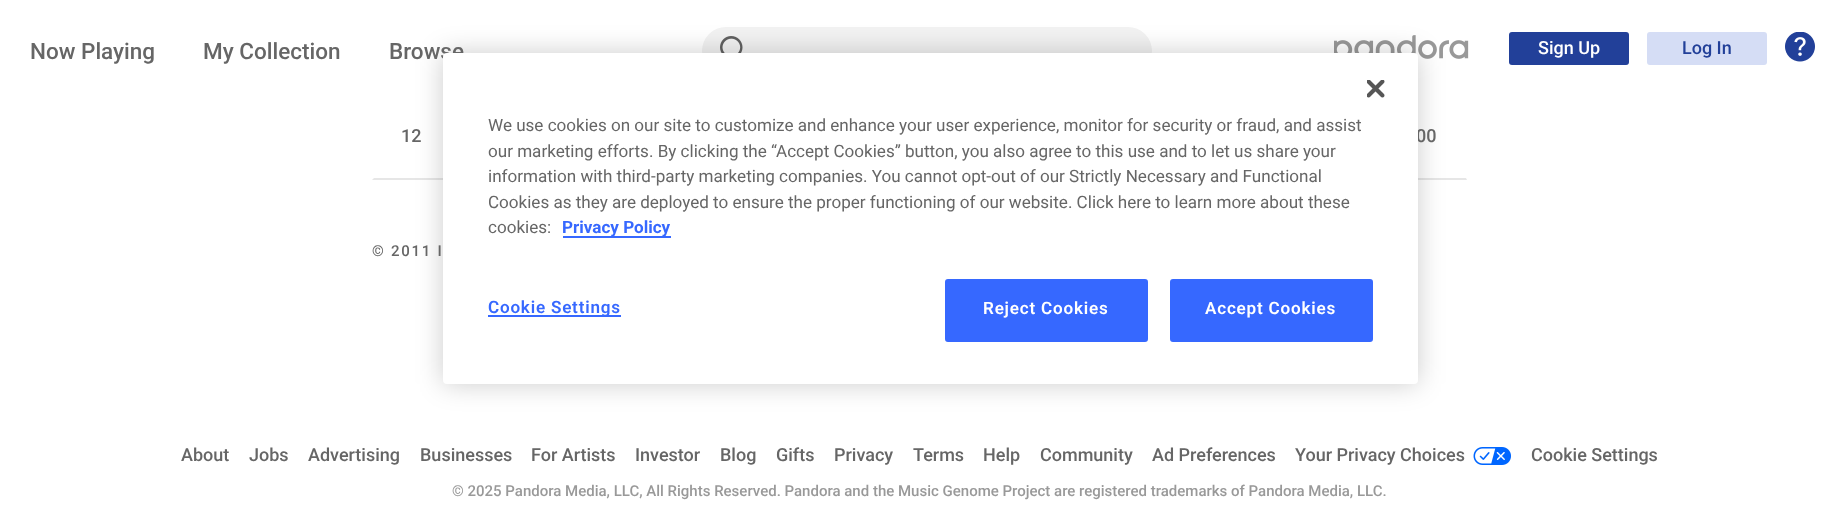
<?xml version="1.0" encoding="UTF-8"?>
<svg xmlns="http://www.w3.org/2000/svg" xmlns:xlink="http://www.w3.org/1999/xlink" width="1839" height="529">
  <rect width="100%" height="100%" fill="#ffffff" />
  <rect x="702" y="27" width="450" height="48" rx="24" fill="#f2f2f2" />
  <image x="720" y="36" width="23" height="17" xlink:href="image1.png" />
  <image x="1334" y="35" width="135" height="24" xlink:href="image2.png" />
  <rect x="1509" y="32" width="120" height="33" rx="3" fill="#224099" />
  <rect x="1647" y="32" width="120" height="33" rx="3" fill="#d5ddf5" />
  <image x="1785" y="32" width="30" height="30" xlink:href="image3.png" />
  <path d="M 1467 180 h -1095 l 2 -2 h 1092 z" fill="#e6e6e6" />
  <image x="1473" y="447" width="38" height="18" xlink:href="image4.png" />
  <rect x="443" y="53" width="975" height="331" rx="4" fill="#000000" fill-opacity="0.2" filter="blur(13.5px)" />
  <text x="30" y="59" style="font-family: Roboto; font-size: 22.5px; font-weight: 500; fill: #666666">Now Playing</text>
  <text x="203" y="59" style="font-family: Roboto; font-size: 22.5px; font-weight: 500; fill: #666666">My Collection</text>
  <text x="389" y="59" style="font-family: Roboto; font-size: 22.5px; font-weight: 500; fill: #666666">Browse</text>
  <text x="1538" y="54" style="font-family: Roboto; font-size: 18px; font-weight: 500; fill: #ffffff">Sign Up</text>
  <text x="1682" y="54" style="font-family: Roboto; font-size: 18px; font-weight: 500; fill: #224099">Log In</text>
  <text x="401" y="142" style="font-family: Roboto; font-size: 18px; font-weight: 500; fill: #666666">12</text>
  <text x="1416" y="142" style="font-family: Roboto; font-size: 18px; font-weight: 500; fill: #666666">00</text>
  <text x="372" y="256" style="font-family: Roboto; font-size: 15px; font-weight: 500; letter-spacing: 1.75px; fill: #666666">© 2011 I</text>
  <text x="181" y="461" style="font-family: Roboto; font-size: 18px; font-weight: 500; fill: #666666">About</text>
  <text x="249" y="461" style="font-family: Roboto; font-size: 18px; font-weight: 500; fill: #666666">Jobs</text>
  <text x="308" y="461" style="font-family: Roboto; font-size: 18px; font-weight: 500; fill: #666666">Advertising</text>
  <text x="420" y="461" style="font-family: Roboto; font-size: 18px; font-weight: 500; fill: #666666">Businesses</text>
  <text x="531" y="461" style="font-family: Roboto; font-size: 18px; font-weight: 500; fill: #666666">For Artists</text>
  <text x="635" y="461" style="font-family: Roboto; font-size: 18px; font-weight: 500; fill: #666666">Investor</text>
  <text x="720" y="461" style="font-family: Roboto; font-size: 18px; font-weight: 500; fill: #666666">Blog</text>
  <text x="776" y="461" style="font-family: Roboto; font-size: 18px; font-weight: 500; fill: #666666">Gifts</text>
  <text x="834" y="461" style="font-family: Roboto; font-size: 18px; font-weight: 500; fill: #666666">Privacy</text>
  <text x="913" y="461" style="font-family: Roboto; font-size: 18px; font-weight: 500; fill: #666666">Terms</text>
  <text x="983" y="461" style="font-family: Roboto; font-size: 18px; font-weight: 500; fill: #666666">Help</text>
  <text x="1040" y="461" style="font-family: Roboto; font-size: 18px; font-weight: 500; fill: #666666">Community</text>
  <text x="1152" y="461" style="font-family: Roboto; font-size: 18px; font-weight: 500; fill: #666666">Ad Preferences</text>
  <text x="1295" y="461" style="font-family: Roboto; font-size: 18px; font-weight: 500; fill: #666666">Your Privacy Choices</text>
  <text x="1531" y="461" style="font-family: Roboto; font-size: 18px; font-weight: 500; fill: #666666">Cookie Settings</text>
  <text x="452" y="496" style="font-family: Roboto; font-size: 15px; font-weight: 500; fill: #999999">© 2025 Pandora Media, LLC, All Rights Reserved. Pandora and the Music Genome Project are registered trademarks of Pandora Media, LLC.</text>
  <rect x="443" y="53" width="975" height="331" rx="4" fill="#ffffff" />
  <image x="1367" y="80" width="18" height="18" xlink:href="image5.png" />
  <text x="488" y="131" style="font-family: Roboto; font-size: 17.07px; fill: #666666">We use cookies on our site to customize and enhance your user experience, monitor for security or fraud, and assist</text>
  <text x="488" y="157" style="font-family: Roboto; font-size: 17.07px; fill: #666666">our marketing efforts. By clicking the “Accept Cookies” button, you also agree to this use and to let us share your</text>
  <text x="488" y="182" style="font-family: Roboto; font-size: 17.07px; fill: #666666">information with third-party marketing companies. You cannot opt-out of our Strictly Necessary and Functional</text>
  <text x="488" y="208" style="font-family: Roboto; font-size: 17.07px; fill: #666666">Cookies as they are deployed to ensure the proper functioning of our website. Click here to learn more about these</text>
  <text x="488" y="233" style="font-family: Roboto; font-size: 17.07px; fill: #666666">cookies:</text>
  <rect x="563" y="236" width="108" height="2" fill="#3668ff" />
  <text x="562" y="233" style="font-family: Roboto; font-size: 17.07px; font-weight: bold; fill: #3668ff">Privacy Policy</text>
  <rect x="488" y="315" width="133" height="2" fill="#3668ff" />
  <text x="488" y="313" style="font-family: Roboto; font-size: 17.07px; font-weight: 600; letter-spacing: 0.8px; fill: #3668ff">Cookie Settings</text>
  <rect x="946" y="280" width="201" height="61" rx="2" fill="#3668ff" stroke="#3668ff" stroke-width="2" />
  <text x="983" y="314" style="font-family: Roboto; font-size: 17.07px; font-weight: 600; letter-spacing: 0.8px; fill: #ffffff">Reject Cookies</text>
  <rect x="1171" y="280" width="201" height="61" rx="2" fill="#3668ff" stroke="#3668ff" stroke-width="2" />
  <text x="1205" y="314" style="font-family: Roboto; font-size: 17.07px; font-weight: 600; letter-spacing: 0.8px; fill: #ffffff">Accept Cookies</text>
</svg>
